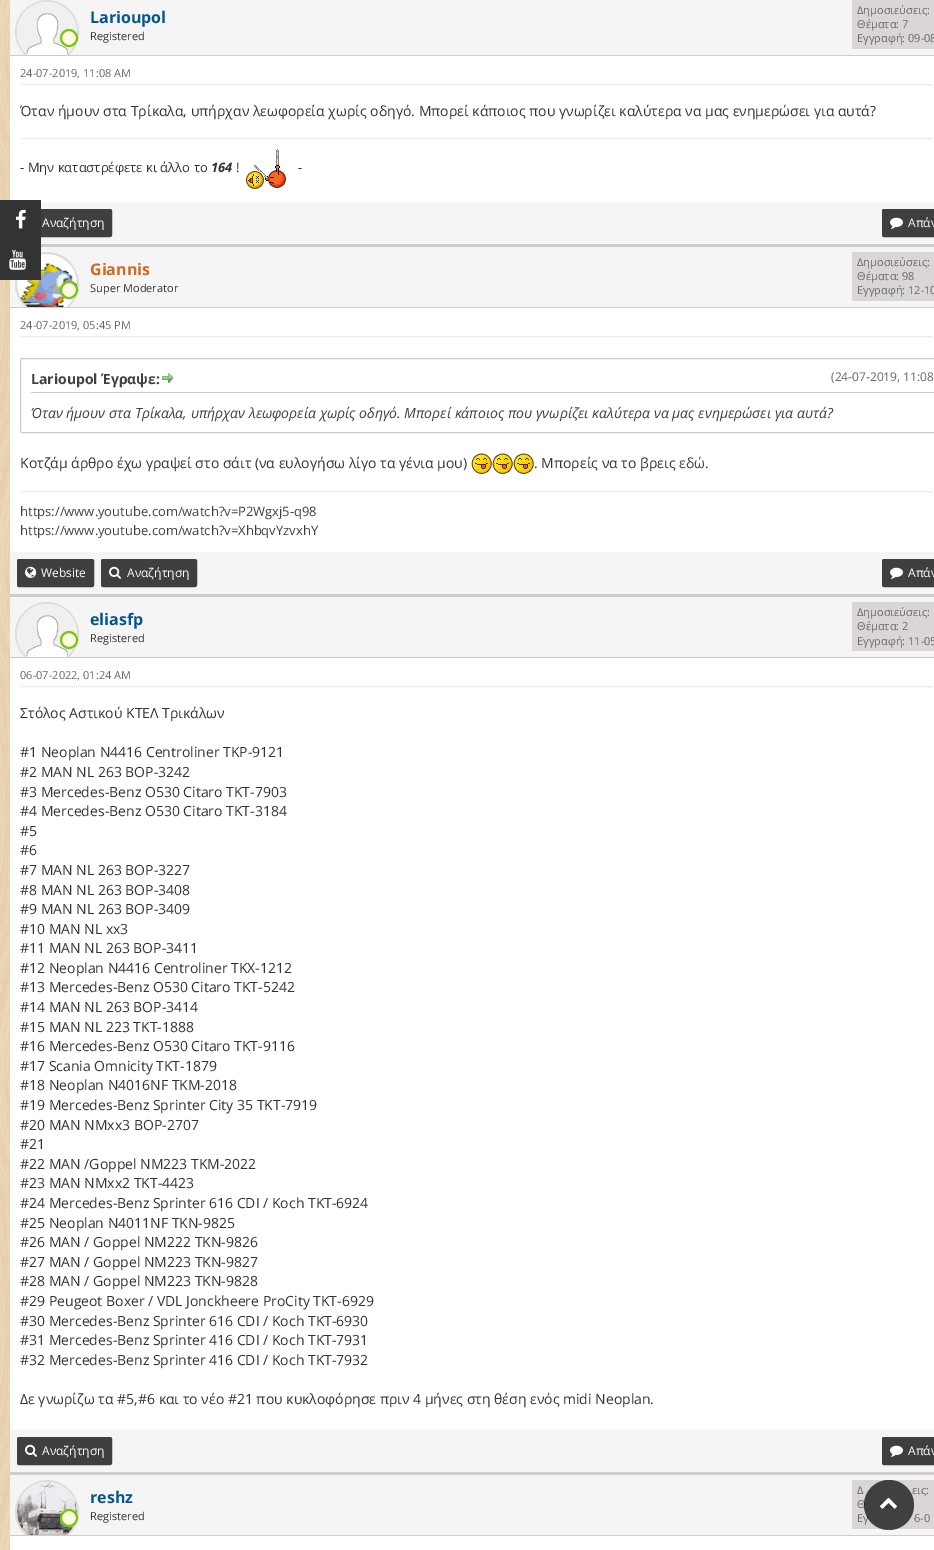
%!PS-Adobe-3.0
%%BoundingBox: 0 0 934 1550
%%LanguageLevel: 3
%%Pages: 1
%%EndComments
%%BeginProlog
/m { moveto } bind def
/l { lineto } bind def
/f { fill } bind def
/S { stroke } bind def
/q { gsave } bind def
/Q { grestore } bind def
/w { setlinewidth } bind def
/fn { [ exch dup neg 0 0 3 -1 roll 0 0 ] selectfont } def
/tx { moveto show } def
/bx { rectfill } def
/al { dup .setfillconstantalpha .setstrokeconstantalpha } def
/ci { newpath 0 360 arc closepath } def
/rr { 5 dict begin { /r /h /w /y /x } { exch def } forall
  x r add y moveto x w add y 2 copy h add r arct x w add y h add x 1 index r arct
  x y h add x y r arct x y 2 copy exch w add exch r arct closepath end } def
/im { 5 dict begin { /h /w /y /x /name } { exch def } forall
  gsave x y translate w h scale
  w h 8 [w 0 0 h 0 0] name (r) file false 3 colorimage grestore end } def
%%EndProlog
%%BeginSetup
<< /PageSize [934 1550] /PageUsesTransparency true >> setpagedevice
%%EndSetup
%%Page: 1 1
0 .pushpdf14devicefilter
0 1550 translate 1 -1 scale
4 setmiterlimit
1 setgray
0 0 934 1550 bx
(image0.raw) 0 0 10 1550 im
0.961 setgray
10 0 924 55 bx
0.8 setgray
10 55 924 1 bx
q
10 0 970 55 rectclip
1 setgray
47 32 31 ci q f Q
0.867 setgray
2 w
S
Q
(image1.raw) 17 2 60 53 im
/OpenSans-Bold 16 fn
0.012 0.337 0.549 setrgbcolor
(Larioupol) 90 23 tx
0.984 0.976 0.882 setrgbcolor
69 38 8 ci q f Q
0.482 0.773 0.071 setrgbcolor
2 w
S
/OpenSans-Regular 11 fn
0.2 setgray
(Registered) 90 40 tx
0.859 0.839 0.839 setrgbcolor
852 0 82 49 bx
0.4 setgray
(Δημοσιεύσεις:) 857 14 tx
(Θέματα: 7) 857 28 tx
(Εγγραφή: 09-08) 857 42 tx
0.867 setgray
1 w
[1 1] 0 setdash
20 84.5 m 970 84.5 l S
0.4 setgray
(24-07-2019, 11:08 AM) 20 77 tx
/OpenSans-Regular 14 fn
0.2 setgray
(Όταν ήμουν στα Τρίκαλα, υπήρχαν λεωφορεία χωρίς οδηγό. Μπορεί κάποιος που γνωρίζει καλύτερα να μας ενημερώσει για αυτά?) 20 116 tx
0.867 setgray
20 138.5 m 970 138.5 l S
/OpenSans-Regular 13 fn
0.2 setgray
(- Μην καταστρέφετε κι άλλο το) 20 172 tx
/OpenSans-BoldItalic 13 fn
(164) 211 172 tx
/OpenSans-Regular 13 fn
(!) 236 172 tx
(image2.raw) 246 149 40 40 im
(-) 298 172 tx
0.961 setgray
41 202 893 42 bx
0.8 setgray
41 244 893 3 bx
0.247 setgray
18 210 93 26 1 rr q f Q
2 w
[] 0 setdash
S
/OpenSans-Regular 12 fn
1 setgray
(Αναζήτηση) 42 227 tx
0.247 setgray
883 210 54 26 1 rr q f Q
S
(image3.raw) 890 217 13 12 im
1 setgray
(Απάν) 908 227 tx
0.961 setgray
10 247 924 60 bx
0.8 setgray
10 307 924 1 bx
q
10 247 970 60 rectclip
1 setgray
47 284 31 ci q f Q
0.867 setgray
S
Q
(image4.raw) 20 263 57 44 im
/OpenSans-Bold 16 fn
0.824 0.412 0.118 setrgbcolor
(Giannis) 90 275 tx
0.984 0.976 0.882 setrgbcolor
69 290 8 ci q f Q
0.482 0.773 0.071 setrgbcolor
S
/OpenSans-Regular 11 fn
0.2 setgray
(Super Moderator) 90 292 tx
0.859 0.839 0.839 setrgbcolor
852 252 82 49 bx
0.4 setgray
(Δημοσιεύσεις:) 857 266 tx
(Θέματα: 98) 857 280 tx
(Εγγραφή: 12-10) 857 294 tx
0.867 setgray
1 w
[1 1] 0 setdash
20 336.5 m 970 336.5 l S
0.4 setgray
(24-07-2019, 05:45 PM) 20 329 tx
0.8 setgray
[] 0 setdash
20.5 358.5 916 74 1.5 rr S
31 392 903 1 bx
/OpenSans-Bold 14 fn
0.251 setgray
(Larioupol Έγραψε:) 31 384 tx
(image5.raw) 162 373 11 10 im
/OpenSans-Regular 12 fn
0.4 setgray
(\(24-07-2019, 11:08) 831 381 tx
/OpenSans-Italic 14 fn
0.251 setgray
(Όταν ήμουν στα Τρίκαλα, υπήρχαν λεωφορεία χωρίς οδηγό. Μπορεί κάποιος που γνωρίζει καλύτερα να μας ενημερώσει για αυτά?) 31 418 tx
/OpenSans-Regular 14 fn
0.2 setgray
(Κοτζάμ άρθρο έχω γραψεί στο σάιτ \(να ευλογήσω λίγο τα γένια μου\)) 20 468 tx
(image6.raw) 471 453 21 21 im
(image6.raw) 492 453 21 21 im
(image6.raw) 513 453 21 21 im
(. Μπορείς να το βρεις) 534 468 tx
0.251 setgray
(εδώ) 679 468 tx
0.2 setgray
(.) 705 468 tx
0.867 setgray
[1 1] 0 setdash
20 491.5 m 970 491.5 l S
/OpenSans-Regular 13 fn
0.251 setgray
(https://www.youtube.com/watch?v=P2Wgxj5-q98) 20 516 tx
(https://www.youtube.com/watch?v=XhbqvYzvxhY) 20 535 tx
0.961 setgray
10 552 924 42 bx
0.8 setgray
10 594 924 3 bx
0.247 setgray
18 560 75 26 1 rr q f Q
2 w
[] 0 setdash
S
(image7.raw) 25 566 12 12 im
/OpenSans-Regular 12 fn
1 setgray
(Website) 41 577 tx
0.247 setgray
102 560 94 26 1 rr q f Q
S
(image8.raw) 109 566 12 13 im
1 setgray
(Αναζήτηση) 127 577 tx
0.247 setgray
883 560 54 26 1 rr q f Q
S
(image3.raw) 890 567 13 12 im
1 setgray
(Απάν) 908 577 tx
0.961 setgray
10 597 924 60 bx
0.8 setgray
10 657 924 1 bx
q
10 597 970 60 rectclip
1 setgray
47 634 31 ci q f Q
0.867 setgray
S
Q
(image9.raw) 17 604 60 53 im
/OpenSans-Bold 16 fn
0.012 0.337 0.549 setrgbcolor
(eliasfp) 90 625 tx
0.984 0.976 0.882 setrgbcolor
69 640 8 ci q f Q
0.482 0.773 0.071 setrgbcolor
S
/OpenSans-Regular 11 fn
0.2 setgray
(Registered) 90 642 tx
0.859 0.839 0.839 setrgbcolor
852 602 82 49 bx
0.4 setgray
(Δημοσιεύσεις:) 857 616 tx
(Θέματα: 2) 857 630 tx
(Εγγραφή: 11-05) 857 645 tx
0.867 setgray
1 w
[1 1] 0 setdash
20 686.5 m 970 686.5 l S
0.4 setgray
(06-07-2022, 01:24 AM) 20 679 tx
/OpenSans-Regular 14 fn
0.2 setgray
(Στόλος Αστικού ΚΤΕΛ Τρικάλων) 20 718 tx
(#1 Neoplan N4416 Centroliner ΤΚΡ-9121) 20 757 tx
(#2 MAN NL 263 ΒΟΡ-3242) 20 777 tx
(#3 Mercedes-Benz O530 Citaro ΤΚΤ-7903) 20 797 tx
(#4 Mercedes-Benz O530 Citaro ΤΚΤ-3184) 20 816 tx
(#5) 20 836 tx
(#6) 20 855 tx
(#7 MAN NL 263 ΒΟΡ-3227) 20 875 tx
(#8 MAN NL 263 ΒΟΡ-3408) 20 895 tx
(#9 MAN NL 263 ΒΟΡ-3409) 20 914 tx
(#10 MAN NL xx3) 20 934 tx
(#11 MAN NL 263 ΒΟΡ-3411) 20 953 tx
(#12 Neoplan N4416 Centroliner ΤΚΧ-1212) 20 973 tx
(#13 Mercedes-Benz O530 Citaro ΤΚΤ-5242) 20 992 tx
(#14 MAN NL 263 ΒΟΡ-3414) 20 1012 tx
(#15 MAN NL 223 ΤΚΤ-1888) 20 1032 tx
(#16 Mercedes-Benz O530 Citaro TKT-9116) 20 1051 tx
(#17 Scania Omnicity TKT-1879) 20 1071 tx
(#18 Neoplan N4016NF TKM-2018) 20 1090 tx
(#19 Mercedes-Benz Sprinter City 35 TKT-7919) 20 1110 tx
(#20 MAN NMxx3 ΒΟΡ-2707) 20 1130 tx
(#21) 20 1149 tx
(#22 MAN /Goppel NM223 ΤΚΜ-2022) 20 1169 tx
(#23 MAN NMxx2 ΤΚΤ-4423) 20 1188 tx
(#24 Mercedes-Benz Sprinter 616 CDI / Koch ΤΚΤ-6924) 20 1208 tx
(#25 Neoplan N4011NF ΤΚΝ-9825) 20 1228 tx
(#26 MAN / Goppel NM222 ΤΚΝ-9826) 20 1247 tx
(#27 MAN / Goppel NM223 ΤΚΝ-9827) 20 1267 tx
(#28 MAN / Goppel NM223 ΤΚΝ-9828) 20 1286 tx
(#29 Peugeot Boxer / VDL Jonckheere ProCity TKT-6929) 20 1306 tx
(#30 Mercedes-Benz Sprinter 616 CDI / Koch TKT-6930) 20 1326 tx
(#31 Mercedes-Benz Sprinter 416 CDI / Koch TKT-7931) 20 1345 tx
(#32 Mercedes-Benz Sprinter 416 CDI / Koch TKT-7932) 20 1365 tx
(Δε γνωρίζω τα #5,#6 και το νέο #21 που κυκλοφόρησε πριν 4 μήνες στη θέση ενός midi Neoplan.) 20 1404 tx
0.961 setgray
10 1430 924 42 bx
0.8 setgray
10 1472 924 3 bx
0.247 setgray
18 1438 93 26 1 rr q f Q
2 w
[] 0 setdash
S
(image8.raw) 25 1444 12 13 im
/OpenSans-Regular 12 fn
1 setgray
(Αναζήτηση) 42 1455 tx
0.247 setgray
883 1438 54 26 1 rr q f Q
S
(image3.raw) 890 1445 13 12 im
1 setgray
(Απάν) 908 1455 tx
0.961 setgray
10 1475 924 60 bx
0.8 setgray
10 1535 924 1 bx
q
10 1475 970 60 rectclip
1 setgray
47 1512 31 ci q f Q
0.867 setgray
S
Q
(image10.raw) 17 1482 60 53 im
/OpenSans-Bold 16 fn
0.012 0.337 0.549 setrgbcolor
(reshz) 90 1503 tx
0.984 0.976 0.882 setrgbcolor
69 1518 8 ci q f Q
0.482 0.773 0.071 setrgbcolor
S
/OpenSans-Regular 11 fn
0.2 setgray
(Registered) 90 1520 tx
0.859 0.839 0.839 setrgbcolor
852 1480 82 49 bx
0.4 setgray
(Δ) 857 1494 tx
(εις:) 912 1494 tx
(Θ) 857 1508 tx
(Εγ) 857 1522 tx
(6-0) 914 1522 tx
0.2 setgray
0 200 41 80 bx
(image11.raw) 16 209 10 20 im
(image12.raw) 9 249 17 21 im
0.7 al
0 setgray
889 1505 25 ci f
1 al
(image13.raw) 880 1497 17 12 im
.poppdf14devicefilter showpage
%%EOF
